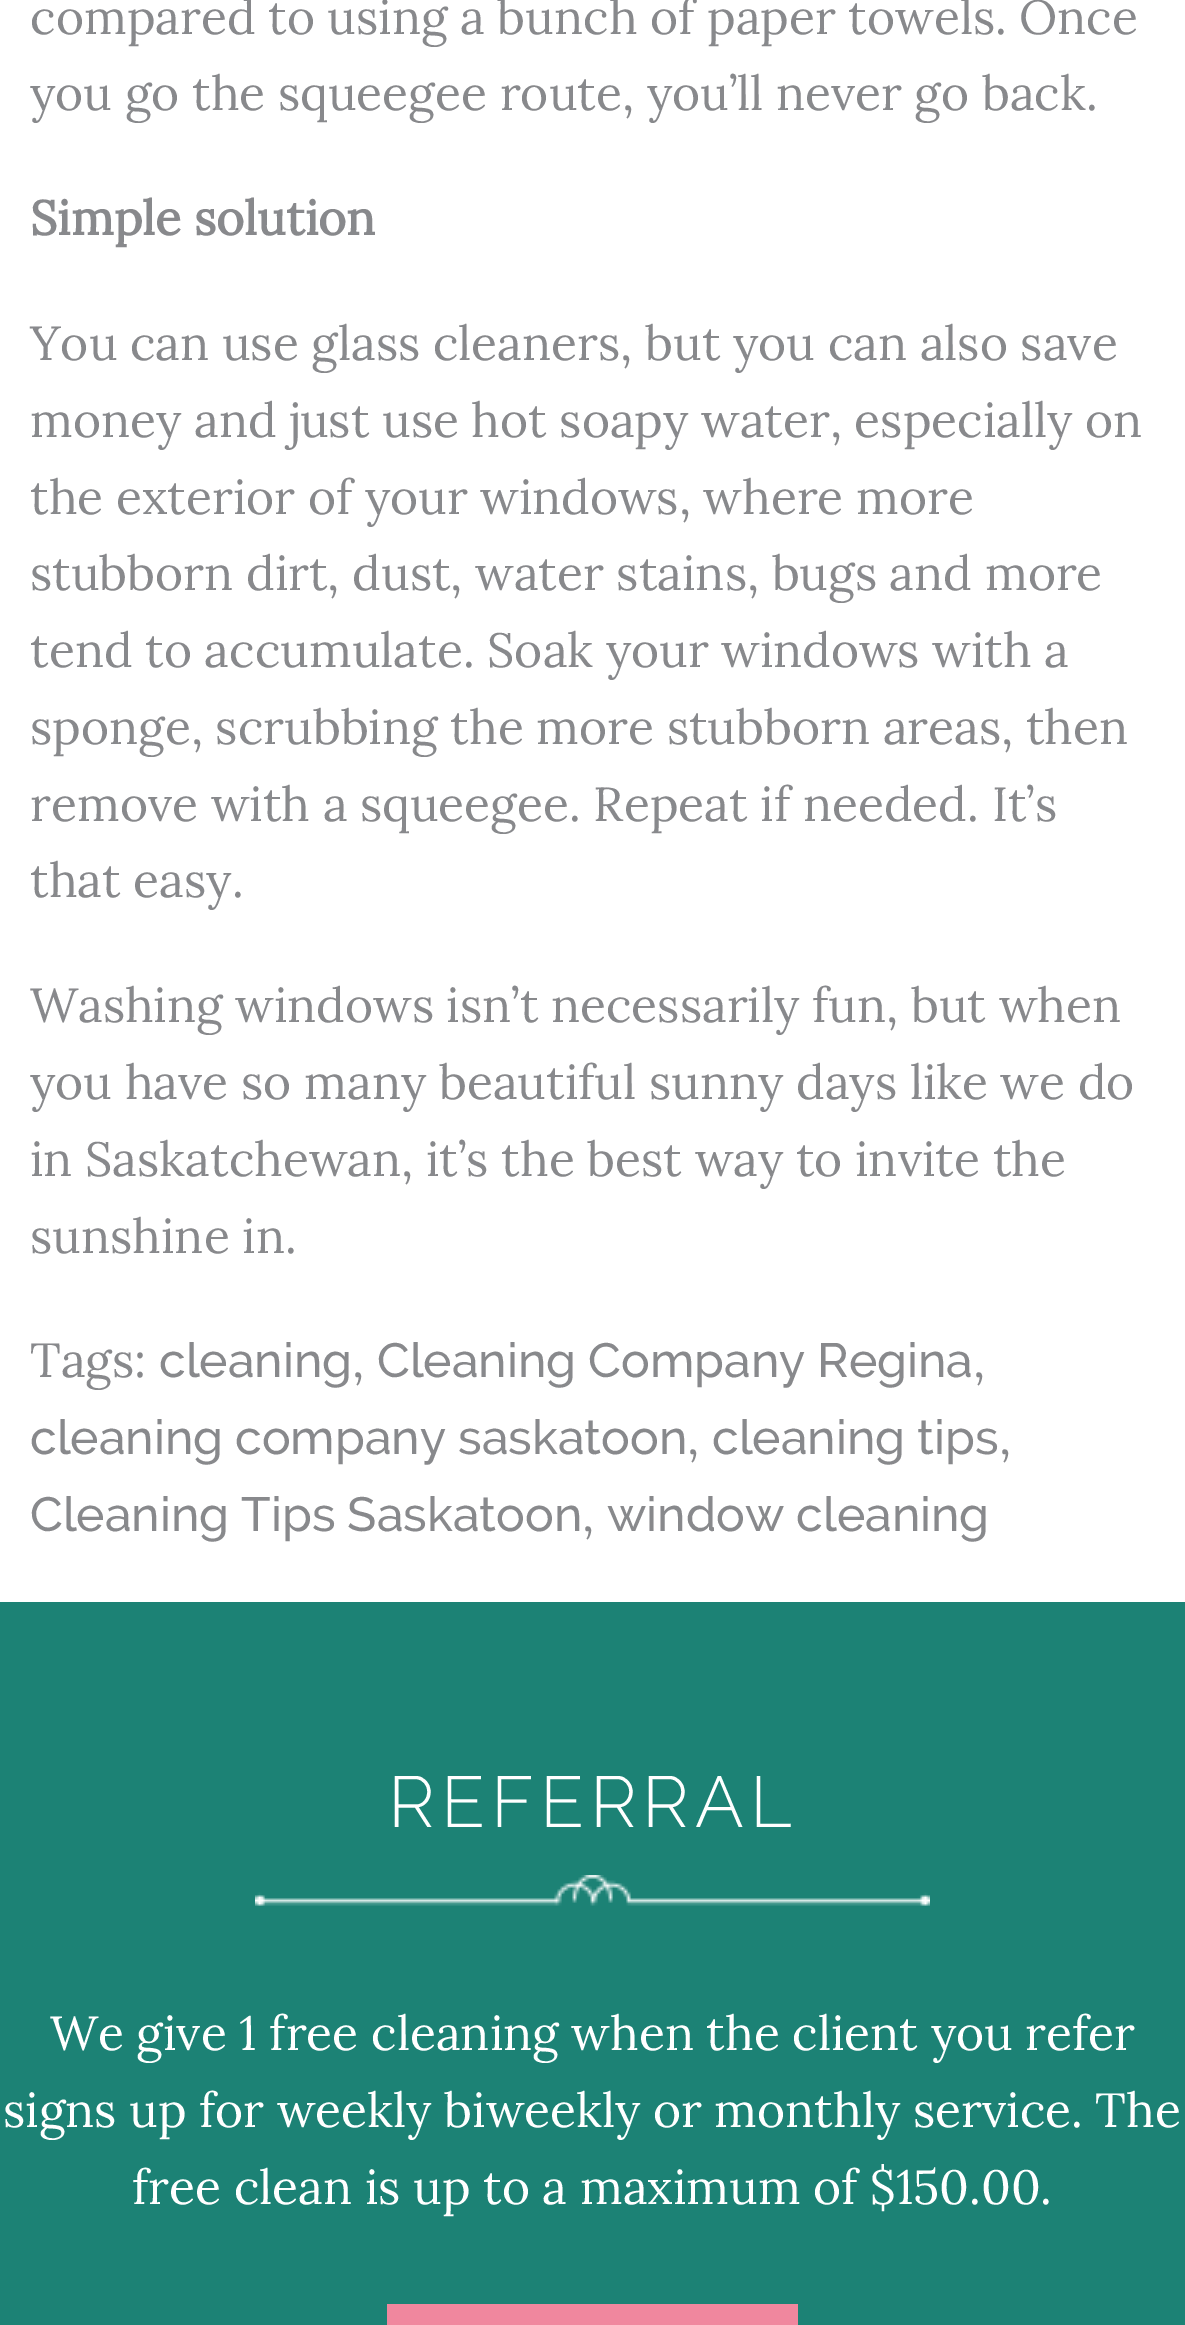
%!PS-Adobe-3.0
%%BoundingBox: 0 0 1185 2325
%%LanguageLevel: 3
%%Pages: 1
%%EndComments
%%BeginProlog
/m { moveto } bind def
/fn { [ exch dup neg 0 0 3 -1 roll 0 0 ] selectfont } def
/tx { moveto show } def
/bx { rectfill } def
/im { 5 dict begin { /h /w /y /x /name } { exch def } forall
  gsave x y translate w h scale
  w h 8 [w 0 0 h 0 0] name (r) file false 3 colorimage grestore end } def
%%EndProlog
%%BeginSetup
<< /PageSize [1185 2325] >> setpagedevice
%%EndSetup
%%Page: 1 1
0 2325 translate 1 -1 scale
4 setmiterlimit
1 setgray
0 0 1185 2325 bx
/Lora-Regular 48 fn
0.533 0.537 0.549 setrgbcolor
(compared to using a bunch of paper towels. Once) 30 34 tx
(you go the squeegee route, you’ll never go back.) 30 110 tx
/Lora-Bold 48 fn
(Simple solution) 30 235 tx
/Lora-Regular 48 fn
(You can use glass cleaners, but you can also save) 30 360 tx
(money and just use hot soapy water, especially on) 30 437 tx
(the exterior of your windows, where more) 30 514 tx
(stubborn dirt, dust, water stains, bugs and more) 30 590 tx
(tend to accumulate. Soak your windows with a) 30 667 tx
(sponge, scrubbing the more stubborn areas, then) 30 744 tx
(remove with a squeegee. Repeat if needed. It’s) 30 821 tx
(that easy.) 30 897 tx
(Washing windows isn’t necessarily fun, but when) 30 1022 tx
(you have so many beautiful sunny days like we do) 30 1099 tx
(in Saskatchewan, it’s the best way to invite the) 30 1176 tx
(sunshine in.) 30 1253 tx
(Tags:) 30 1377 tx
/Raleway-Medium 48 fn
(cleaning) 159 1377 tx
/Lora-Regular 48 fn
(,) 352 1377 tx
/Raleway-Medium 48 fn
(Cleaning Company Regina) 377 1377 tx
/Lora-Regular 48 fn
(,) 973 1377 tx
/Raleway-Medium 48 fn
(cleaning company saskatoon) 30 1454 tx
/Lora-Regular 48 fn
(,) 687 1454 tx
/Raleway-Medium 48 fn
(cleaning tips) 712 1454 tx
/Lora-Regular 48 fn
(,) 999 1454 tx
/Raleway-Medium 48 fn
(Cleaning Tips Saskatoon) 30 1531 tx
/Lora-Regular 48 fn
(,) 582 1531 tx
/Raleway-Medium 48 fn
(window cleaning) 607 1531 tx
0.11 0.51 0.459 setrgbcolor
0 1602 1185 723 bx
/Raleway-Light 72 fn
1 setgray
388 1827 m 6 0 (REFERRAL) ashow
(image0.raw) 255 1875 675 31 im
/Lora-Regular 48 fn
(We give 1 free cleaning when the client you refer) 50 2050 tx
(signs up for weekly biweekly or monthly service. The) 3 2127 tx
(free clean is up to a maximum of $150.00.) 132 2204 tx
0.941 0.529 0.62 setrgbcolor
387 2304 411 21 bx
showpage
%%EOF
